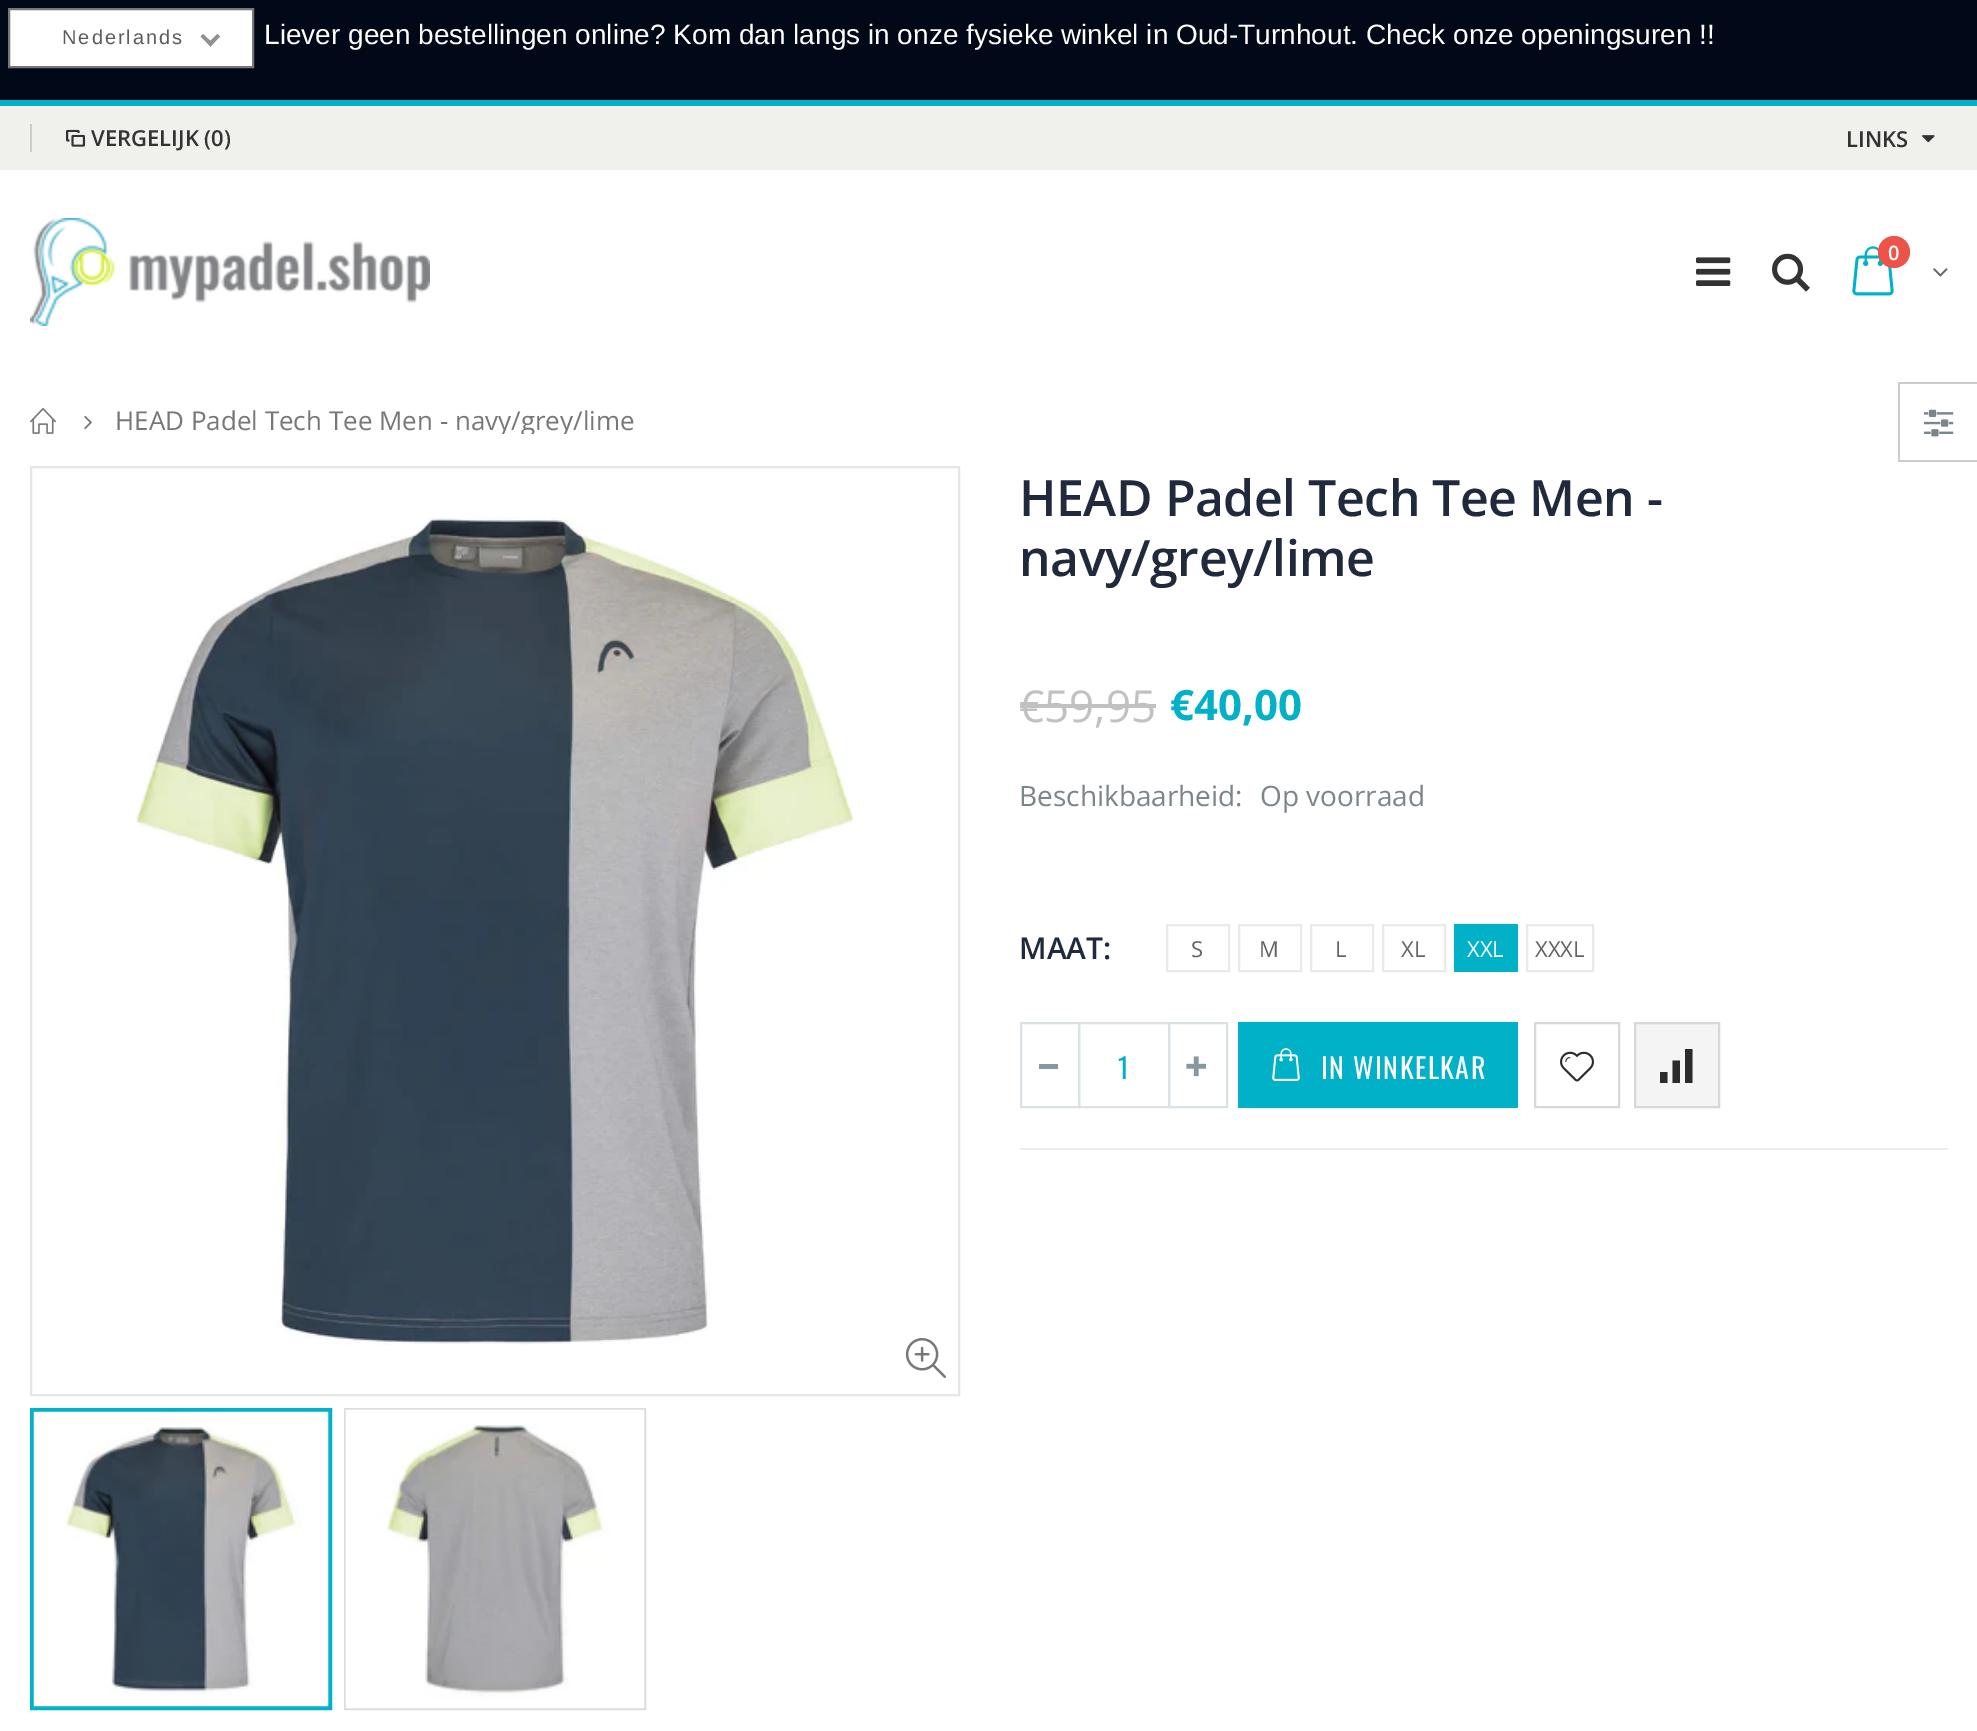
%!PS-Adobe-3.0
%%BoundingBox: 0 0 1977 1731
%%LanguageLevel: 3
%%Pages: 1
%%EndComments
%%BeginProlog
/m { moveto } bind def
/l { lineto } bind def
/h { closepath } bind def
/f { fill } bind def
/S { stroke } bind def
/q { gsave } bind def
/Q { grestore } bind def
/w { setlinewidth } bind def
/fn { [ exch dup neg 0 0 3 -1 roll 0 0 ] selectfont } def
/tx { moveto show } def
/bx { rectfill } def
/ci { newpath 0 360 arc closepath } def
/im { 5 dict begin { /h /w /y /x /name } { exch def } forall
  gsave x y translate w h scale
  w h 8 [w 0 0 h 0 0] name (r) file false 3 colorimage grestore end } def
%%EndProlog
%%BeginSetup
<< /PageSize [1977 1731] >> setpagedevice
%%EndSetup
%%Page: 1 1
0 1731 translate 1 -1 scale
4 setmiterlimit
1 setgray
0 0 1977 1731 bx
0.004 0.035 0.098 setrgbcolor
0 0 1977 100 bx
/LiberationSans-Regular 28 fn
1 setgray
(Liever geen bestellingen online? Kom dan langs in onze fysieke winkel in Oud-Turnhout. Check onze openingsuren !!) 264 44 tx
0.004 0.694 0.784 setrgbcolor
0 100 1977 6 bx
0.941 0.941 0.929 setrgbcolor
0 106 1977 64 bx
0.8 setgray
30 124 2 28 bx
(image0.raw) 66 129 20 18 im
/OpenSans-SemiBold 22 fn
0.2 setgray
(VERGELIJK \(0\)) 91 146 tx
(LINKS) 1846 147 tx
(image1.raw) 1922 135 13 8 im
(image2.raw) 30 218 400 108 im
(image3.raw) 1696 257 35 29 im
(image4.raw) 1772 253 38 39 im
(image5.raw) 1852 246 42 50 im
0.929 0.325 0.282 setrgbcolor
1894 252 16 ci f
/OpenSans-SemiBold 20 fn
1 setgray
(0) 1888 260 tx
(image6.raw) 1933 268 15 9 im
(image7.raw) 30 408 26 26 im
(image8.raw) 84 415 8 15 im
q
30 406 1918 28 rectclip
/OpenSans-Regular 26 fn
0.467 setgray
(HEAD Padel Tech Tee Men - navy/grey/lime) 115 430 tx
Q
0.8 setgray
1898 382 79 2 bx
1898 460 79 2 bx
1898 382 2 80 bx
(image9.raw) 1924 409 30 28 im
0.902 setgray
2 w
31 467 928 928 rectstroke
(image10.raw) 135 517 725 828 im
(image11.raw) 905 1338 41 40 im
0.004 0.694 0.784 setrgbcolor
4 w
32 1410 298 298 rectstroke
(image12.raw) 33 1411 297 297 im
0.867 setgray
2 w
345 1409 300 300 rectstroke
(image13.raw) 345 1409 300 300 im
/OpenSans-SemiBold 50 fn
0.129 0.161 0.235 setrgbcolor
1019 516 m -0.5 0 (HEAD Padel Tech Tee Men -) ashow
1019 576 m -0.5 0 (navy/grey/lime) ashow
/OpenSans-Regular 44 fn
0.757 setgray
(€59,95) 1019 722 tx
1020 704 136 4 bx
/OpenSans-Bold 42 fn
0.004 0.694 0.784 setrgbcolor
(€40,00) 1170 720 tx
/OpenSans-Regular 28 fn
0.482 0.522 0.541 setrgbcolor
(Beschikbaarheid:) 1019 806 tx
(Op voorraad) 1260 806 tx
/OpenSans-SemiBold 30 fn
0.129 0.161 0.235 setrgbcolor
(MAAT:) 1019 959 tx
0.914 setgray
1167 925 62 46 rectstroke
/OpenSans-Regular 22 fn
0.388 setgray
(S) 1191 957 tx
0.914 setgray
1239 925 62 46 rectstroke
0.388 setgray
(M) 1259 957 tx
0.914 setgray
1311 925 62 46 rectstroke
0.388 setgray
(L) 1335 957 tx
0.914 setgray
1383 925 62 46 rectstroke
0.388 setgray
(XL) 1401 957 tx
0.004 0.694 0.784 setrgbcolor
1454 924 64 48 bx
1 setgray
(XXL) 1467 957 tx
0.914 setgray
1527 925 66 46 rectstroke
0.388 setgray
(XXXL) 1535 957 tx
0.922 setgray
1020 1148 928 2 bx
0.882 setgray
1079 1023 90 84 rectstroke
0.855 0.886 0.902 setrgbcolor
1021 1023 58 84 rectstroke
0.529 0.596 0.635 setrgbcolor
1039 1064 19 5 bx
0.855 0.886 0.902 setrgbcolor
1169 1023 58 84 rectstroke
(image14.raw) 1186 1056 21 21 im
/Oswald-Regular 28 fn
0.004 0.694 0.784 setrgbcolor
(1) 1118 1079 tx
1238 1022 280 86 bx
(image15.raw) 1272 1048 28 33 im
1 setgray
1321 1079 m 1.4 0 (IN WINKELKAR) ashow
0.847 0.847 0.839 setrgbcolor
1535 1023 84 84 rectstroke
(image16.raw) 1560 1051 34 31 im
0.957 setgray
1635 1023 m 1719 1023 l 1719 1107 l 1635 1107 l h q f Q
0.847 0.847 0.839 setrgbcolor
S
0.169 0.169 0.176 setrgbcolor
1667.5 1083 m 1660 1083 l 1660 1072 l 1667.5 1072 l h 1680 1083 m 1672.5 1083 l 1672.5 1060.5 l 1680 1060.5 l h 1685 1083 m 1685 1049 l 1692.5 1049 l 1692.5 1083 l h f
1 setgray
9 9 m 253 9 l 253 67 l 9 67 l h q f Q
0.467 setgray
S
/LiberationSans-Regular 20 fn
0.361 setgray
62 44 m 2 0 (Nederlands) ashow
0.565 setgray
217.5 34 m 220 36.5 l 210.5 46.5 l 207.5 43.5 l h f
203 34 m 213 43.5 l 210.5 46.5 l 200.5 36.5 l h f
showpage
%%EOF
